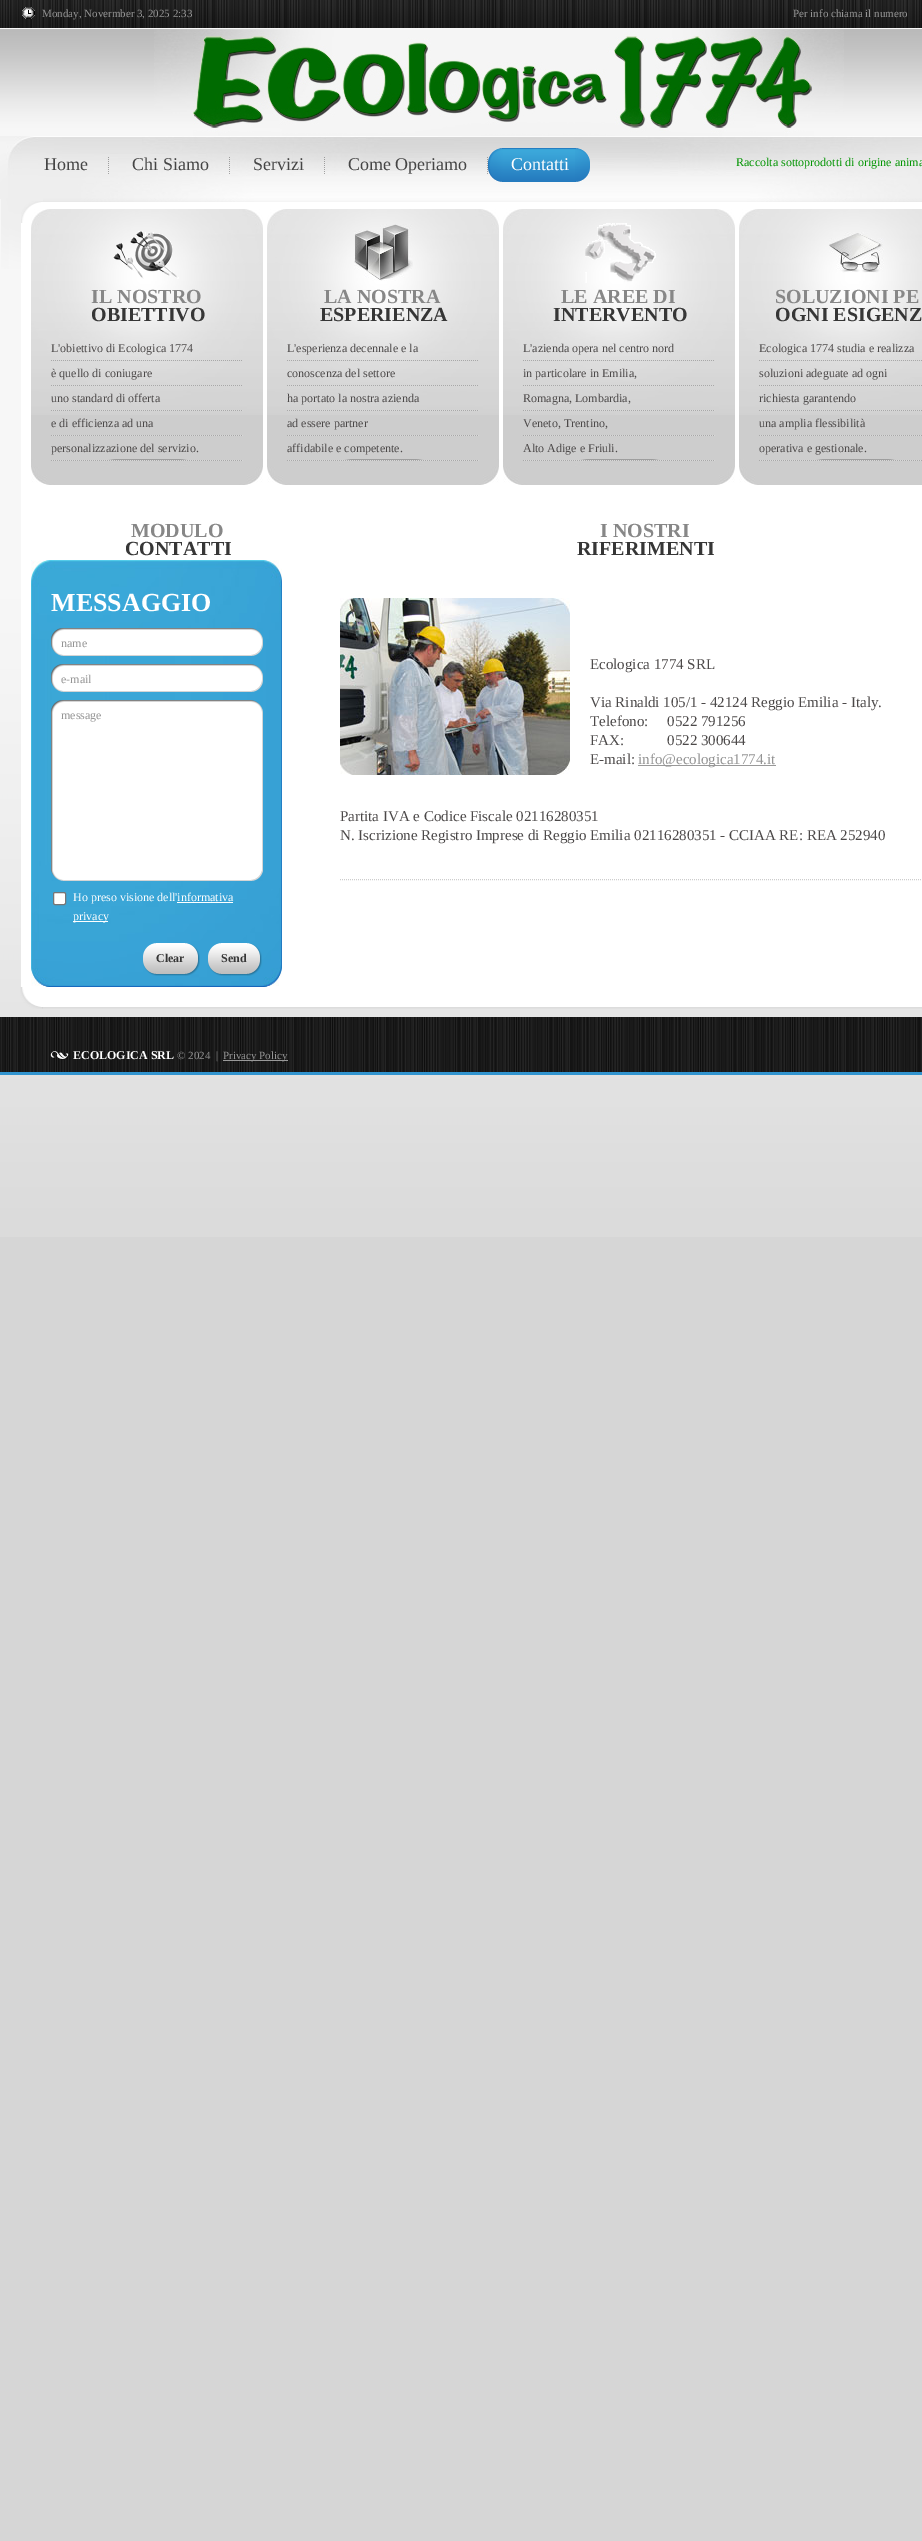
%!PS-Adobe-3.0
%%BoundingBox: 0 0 922 2541
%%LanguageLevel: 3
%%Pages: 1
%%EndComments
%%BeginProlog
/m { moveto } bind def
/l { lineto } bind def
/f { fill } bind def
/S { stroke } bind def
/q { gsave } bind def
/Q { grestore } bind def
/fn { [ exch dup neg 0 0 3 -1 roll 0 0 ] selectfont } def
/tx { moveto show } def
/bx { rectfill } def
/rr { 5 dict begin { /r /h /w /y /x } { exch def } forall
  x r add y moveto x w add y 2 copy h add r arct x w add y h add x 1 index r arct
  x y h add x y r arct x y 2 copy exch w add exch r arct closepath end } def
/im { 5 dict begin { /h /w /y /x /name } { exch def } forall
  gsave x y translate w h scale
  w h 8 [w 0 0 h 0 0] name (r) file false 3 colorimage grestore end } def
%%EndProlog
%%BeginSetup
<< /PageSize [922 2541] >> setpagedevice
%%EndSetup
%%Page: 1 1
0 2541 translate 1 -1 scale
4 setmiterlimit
0.839 setgray
0 0 922 2541 bx
(image0.raw) 0 28 922 1209 im
(image1.raw) 154 29 690 85 im
(image2.raw) 0 0 922 28 im
(image3.raw) 22 7 13 12 im
/LiberationSerif-Regular 11 fn
0.58 setgray
(Monday, Novermber 3, 2025 2:33) 42 17 tx
(Per info chiama il numero) 793 17 tx
(image4.raw) 193 30 621 106 im
(image5.raw) 0 136 922 63 im
(image6.raw) 108 157 1 17 im
/LiberationSerif-Regular 18 fn
0.271 setgray
(Home) 44 170 tx
(image6.raw) 229 157 1 17 im
(Chi Siamo) 132 170 tx
(image6.raw) 324 157 1 17 im
(Servizi) 253 170 tx
(image6.raw) 487 157 1 17 im
(Come Operiamo) 348 170 tx
(image7.raw) 488 148 15 34 im
(image8.raw) 575 148 15 34 im
(image9.raw) 503 148 72 34 im
1 setgray
(Contatti) 511 170 tx
/LiberationSerif-Regular 12 fn
0.016 0.588 0.016 setrgbcolor
(Raccolta sottoprodotti di origine anima) 736 166 tx
(image10.raw) 1 198 42 71 im
(image11.raw) 21 201 22 22 im
(image12.raw) 43 198 879 25 im
1 setgray
21 223 901 764 bx
0.804 setgray
31 415 232 44 bx
(image13.raw) 31 209 232 206 im
(image14.raw) 31 459 232 26 im
(image15.raw) 113 231 66 48 im
/LiberationSerif-Bold 20 fn
0.529 setgray
(IL NOSTRO) 91 303 tx
0.212 setgray
(OBIETTIVO) 91 321 tx
(image16.raw) 51 360 191 1 im
/LiberationSerif-Regular 12 fn
0.298 0.286 0.286 setrgbcolor
(L'obiettivo di Ecologica 1774) 51 352 tx
(image16.raw) 51 385 191 1 im
(è quello di coniugare) 51 377 tx
(image17.raw) 51 410 192 1 im
(uno standard di offerta) 51 402 tx
(image17.raw) 51 435 192 1 im
(e di efficienza ad una) 51 427 tx
(image17.raw) 51 460 192 1 im
(personalizzazione del servizio.) 51 452 tx
0.804 setgray
267 415 232 44 bx
(image13.raw) 267 209 232 206 im
(image14.raw) 267 459 232 26 im
(image18.raw) 354 224 59 57 im
/LiberationSerif-Bold 20 fn
0.529 setgray
(LA NOSTRA) 324 303 tx
0.212 setgray
(ESPERIENZA) 320 321 tx
(image16.raw) 287 360 191 1 im
/LiberationSerif-Regular 12 fn
0.298 0.286 0.286 setrgbcolor
(L'esperienza decennale e la) 287 352 tx
(image16.raw) 287 385 191 1 im
(conoscenza del settore) 287 377 tx
(image17.raw) 287 410 192 1 im
(ha portato la nostra azienda) 287 402 tx
(image17.raw) 287 435 192 1 im
(ad essere partner) 287 427 tx
(image17.raw) 287 460 192 1 im
(affidabile e competente.) 287 452 tx
0.804 setgray
503 415 232 44 bx
(image13.raw) 503 209 232 206 im
(image14.raw) 503 459 232 26 im
(image19.raw) 585 223 71 60 im
/LiberationSerif-Bold 20 fn
0.529 setgray
(LE AREE DI) 561 303 tx
0.212 setgray
(INTERVENTO) 553 321 tx
(image16.raw) 523 360 191 1 im
/LiberationSerif-Regular 12 fn
0.298 0.286 0.286 setrgbcolor
(L'azienda opera nel centro nord) 523 352 tx
(image16.raw) 523 385 191 1 im
(in particolare in Emilia,) 523 377 tx
(image17.raw) 523 410 192 1 im
(Romagna, Lombardia,) 523 402 tx
(image17.raw) 523 435 192 1 im
(Veneto, Trentino,) 523 427 tx
(image17.raw) 523 460 192 1 im
(Alto Adige e Friuli.) 523 452 tx
0.804 setgray
739 415 183 70 bx
(image20.raw) 739 209 183 206 im
(image21.raw) 739 459 156 26 im
(image22.raw) 829 232 55 41 im
/LiberationSerif-Bold 20 fn
0.529 setgray
(SOLUZIONI PE) 775 303 tx
0.212 setgray
(OGNI ESIGENZ) 775 321 tx
(image23.raw) 759 360 163 1 im
/LiberationSerif-Regular 12 fn
0.298 0.286 0.286 setrgbcolor
(Ecologica 1774 studia e realizza) 759 352 tx
(image23.raw) 759 385 163 1 im
(soluzioni adeguate ad ogni) 759 377 tx
(image23.raw) 759 410 163 1 im
(richiesta garantendo) 759 402 tx
(image23.raw) 759 435 163 1 im
(una amplia flessibilità) 759 427 tx
(image23.raw) 759 460 163 1 im
(operativa e gestionale.) 759 452 tx
/LiberationSerif-Bold 20 fn
0.529 setgray
(MODULO) 131 537 tx
0.212 setgray
(CONTATTI) 125 555 tx
(image24.raw) 31 560 251 427 im
/LiberationSerif-Bold 26 fn
1 setgray
(MESSAGGIO) 51 611 tx
(image25.raw) 51 628 212 28 im
/LiberationSerif-Regular 12 fn
0.58 setgray
(name) 61 647 tx
(image25.raw) 51 664 212 28 im
(e-mail) 61 683 tx
(image26.raw) 51 700 212 181 im
(message) 61 719 tx
1 setgray
53.5 892.5 12 12 1.5 rr q f Q
0.463 setgray
S
1 setgray
(Ho preso visione dell'informativa) 73 901 tx
73 921 35 1 bx
(privacy) 73 920 tx
177 902 56 1 bx
(image27.raw) 143 943 13 33 im
(image28.raw) 185 943 15 33 im
(image29.raw) 156 943 29 33 im
/LiberationSerif-Bold 12 fn
0.212 setgray
(Clear) 156 962 tx
(image30.raw) 208 943 13 33 im
(image31.raw) 247 943 15 33 im
(image32.raw) 221 943 26 33 im
(Send) 221 962 tx
/LiberationSerif-Bold 20 fn
0.529 setgray
(I NOSTRI) 600 537 tx
0.212 setgray
(RIFERIMENTI) 577 555 tx
0.804 setgray
[1 1] 0 setdash
340 879.5 m 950 879.5 l S
(image33.raw) 340 598 230 177 im
/LiberationSerif-Regular 15 fn
0.298 0.286 0.286 setrgbcolor
(Ecologica 1774 SRL) 590 669 tx
(Via Rinaldi 105/1 - 42124 Reggio Emilia - Italy.) 590 707 tx
(Telefono:) 590 726 tx
(0522 791256) 667 726 tx
(FAX:) 590 745 tx
(0522 300644) 667 745 tx
(E-mail:) 590 764 tx
0.6 setgray
638 765 138 1 bx
0.58 setgray
(info@ecologica1774.it) 638 764 tx
0.298 0.286 0.286 setrgbcolor
(Partita IVA e Codice Fiscale 02116280351) 340 821 tx
(N. Iscrizione Registro Imprese di Reggio Emilia 02116280351 - CCIAA RE: REA 252940) 340 840 tx
(image34.raw) 20 987 23 22 im
(image35.raw) 42 987 880 22 im
(image36.raw) 0 1017 922 55 im
0.192 0.58 0.812 setrgbcolor
0 1072 922 3 bx
(image37.raw) 50 1051 19 9 im
/LiberationSerif-Bold 12 fn
1 setgray
(ECOLOGICA SRL) 73 1059 tx
/LiberationSerif-Regular 11 fn
0.58 setgray
(© 2024  |) 177 1059 tx
0.6 setgray
223 1060 65 1 bx
0.58 setgray
(Privacy Policy) 223 1059 tx
showpage
%%EOF
